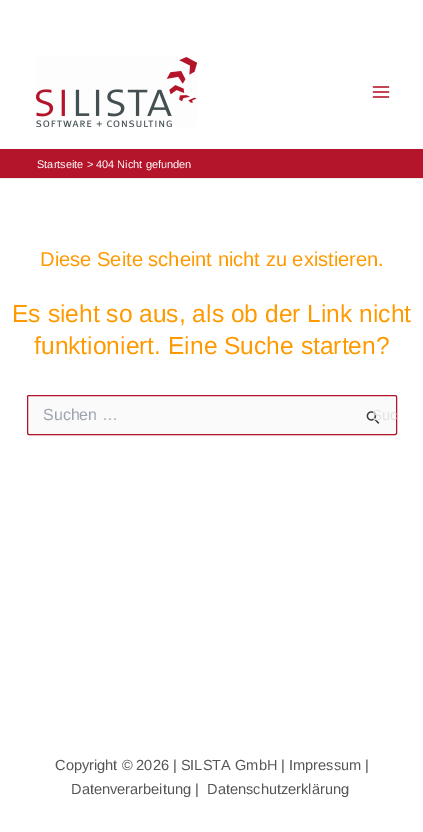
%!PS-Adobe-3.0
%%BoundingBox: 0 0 423 832
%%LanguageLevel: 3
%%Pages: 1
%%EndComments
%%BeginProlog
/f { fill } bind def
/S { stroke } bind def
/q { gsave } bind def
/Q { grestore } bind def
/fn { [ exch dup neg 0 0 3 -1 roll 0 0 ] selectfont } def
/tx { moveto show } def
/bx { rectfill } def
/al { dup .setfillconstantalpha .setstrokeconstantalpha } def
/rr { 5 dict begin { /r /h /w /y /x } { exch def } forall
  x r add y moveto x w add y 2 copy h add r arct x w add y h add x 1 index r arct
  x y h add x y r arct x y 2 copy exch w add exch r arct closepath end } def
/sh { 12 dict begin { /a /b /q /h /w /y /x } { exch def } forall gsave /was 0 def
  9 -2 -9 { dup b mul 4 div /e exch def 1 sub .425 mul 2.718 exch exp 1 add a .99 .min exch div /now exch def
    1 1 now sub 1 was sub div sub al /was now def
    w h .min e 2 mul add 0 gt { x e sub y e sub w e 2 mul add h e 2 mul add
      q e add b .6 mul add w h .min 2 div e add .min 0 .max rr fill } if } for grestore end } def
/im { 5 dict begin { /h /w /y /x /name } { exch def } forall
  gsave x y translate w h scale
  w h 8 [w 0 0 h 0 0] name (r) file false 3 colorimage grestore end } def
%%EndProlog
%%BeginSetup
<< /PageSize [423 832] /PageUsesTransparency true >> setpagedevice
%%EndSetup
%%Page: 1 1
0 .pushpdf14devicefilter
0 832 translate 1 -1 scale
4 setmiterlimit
1 setgray
0 0 423 832 bx
(image0.raw) 36 57 161 70 im
(image1.raw) 372 86 18 12 im
0.706 0.082 0.169 setrgbcolor
0 149 423 29 bx
0.918 setgray
0 178 423 1 bx
/LiberationSans-Regular 11 fn
1 setgray
(Startseite > 404 Nicht gefunden) 37 168 tx
/LiberationSans-Regular 20.1 fn
1 0.6 0 setrgbcolor
(Diese Seite scheint nicht zu existieren.) 40 266 tx
/LiberationSans-Regular 24.6 fn
(Es sieht so aus, als ob der Link nicht) 12 322 tx
(funktioniert. Eine Suche starten?) 34 354 tx
0 setgray
27 396 370 40 2 1 0.05 sh
0.98 setgray
27.5 395.5 369 39 1.5 rr q f Q
0.706 0.082 0.169 setrgbcolor
S
/LiberationSans-Regular 16 fn
0.612 0.639 0.686 setrgbcolor
(Suchen …) 43 420 tx
(image2.raw) 366 411 14 13 im
/LiberationSans-Regular 14.6 fn
0.894 0.882 0.882 setrgbcolor
(Suc) 372 420 tx
0.333 setgray
(Copyright © 2026 | SILSTA GmbH | Impressum |) 55 770 tx
(Datenverarbeitung |) 71 794 tx
(Datenschutzerklärung) 207 794 tx
.poppdf14devicefilter showpage
%%EOF
